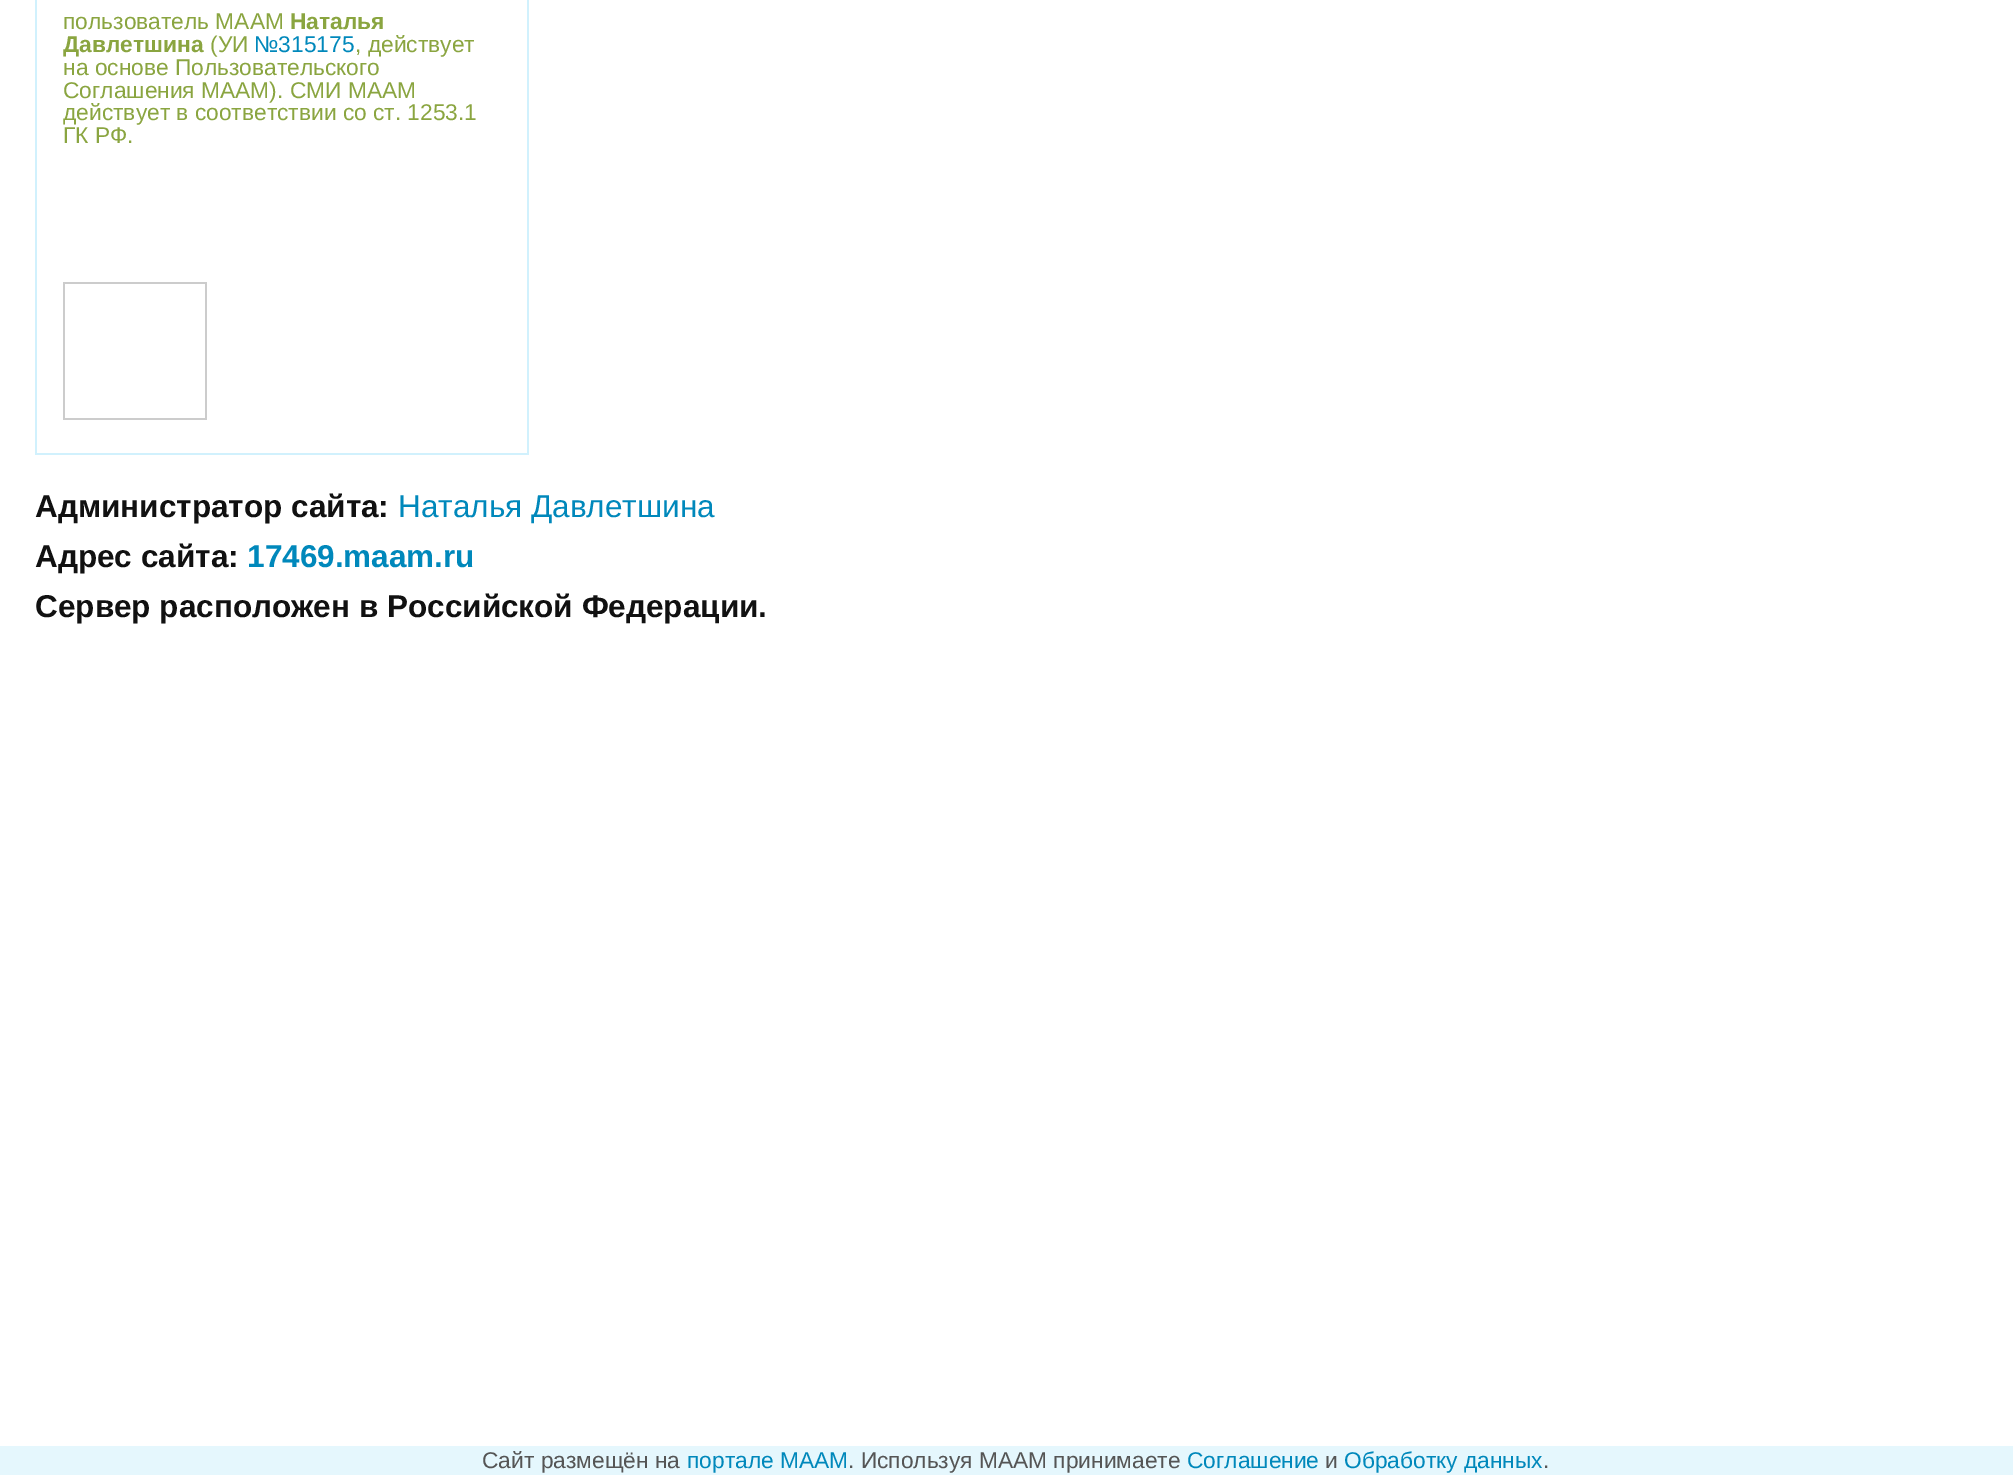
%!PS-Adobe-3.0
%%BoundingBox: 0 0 2013 1475
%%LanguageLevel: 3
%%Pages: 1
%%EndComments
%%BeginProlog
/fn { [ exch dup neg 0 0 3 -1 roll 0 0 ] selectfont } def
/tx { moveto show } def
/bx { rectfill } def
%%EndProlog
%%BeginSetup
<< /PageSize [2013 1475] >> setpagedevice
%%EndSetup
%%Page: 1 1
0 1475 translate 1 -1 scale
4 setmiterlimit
1 setgray
0 0 2013 1475 bx
0.82 0.945 0.992 setrgbcolor
527 0 2 455 bx
35 453 494 2 bx
35 0 2 455 bx
/LiberationSans-Regular 22.75 fn
0.541 0.647 0.251 setrgbcolor
(пользователь МААМ) 63 29 tx
/LiberationSans-Bold 22.75 fn
(Наталья) 290 29 tx
(Давлетшина) 63 52 tx
/LiberationSans-Regular 22.75 fn
(\(УИ) 210 52 tx
0 0.533 0.733 setrgbcolor
(№315175) 254 52 tx
0.541 0.647 0.251 setrgbcolor
(, действует) 355 52 tx
(на основе Пользовательского) 63 75 tx
(Соглашения МААМ\). СМИ МААМ) 63 98 tx
(действует в соответствии со ст. 1253.1) 63 120 tx
(ГК РФ.) 63 143 tx
0.8 setgray
63 282 144 2 bx
205 282 2 138 bx
63 418 144 2 bx
63 282 2 138 bx
/LiberationSans-Bold 31.5 fn
0.067 setgray
(Администратор сайта:) 35 517 tx
/LiberationSans-Regular 31.5 fn
0 0.533 0.733 setrgbcolor
(Наталья Давлетшина) 398 517 tx
/LiberationSans-Bold 31.5 fn
0.067 setgray
(Адрес сайта:) 35 567 tx
0 0.533 0.733 setrgbcolor
(17469.maam.ru) 247 567 tx
0.067 setgray
(Сервер расположен в Российской Федерации.) 35 617 tx
0.898 0.969 0.992 setrgbcolor
0 1446 2013 29 bx
/LiberationSans-Regular 22.75 fn
0.333 setgray
(Сайт размещён на) 482 1468 tx
0 0.533 0.733 setrgbcolor
(портале МААМ) 687 1468 tx
0.333 setgray
(. Используя МААМ принимаете) 848 1468 tx
0 0.533 0.733 setrgbcolor
(Соглашение) 1187 1468 tx
0.333 setgray
(и) 1325 1468 tx
0 0.533 0.733 setrgbcolor
(Обработку данных) 1344 1468 tx
0.333 setgray
(.) 1543 1468 tx
showpage
%%EOF
